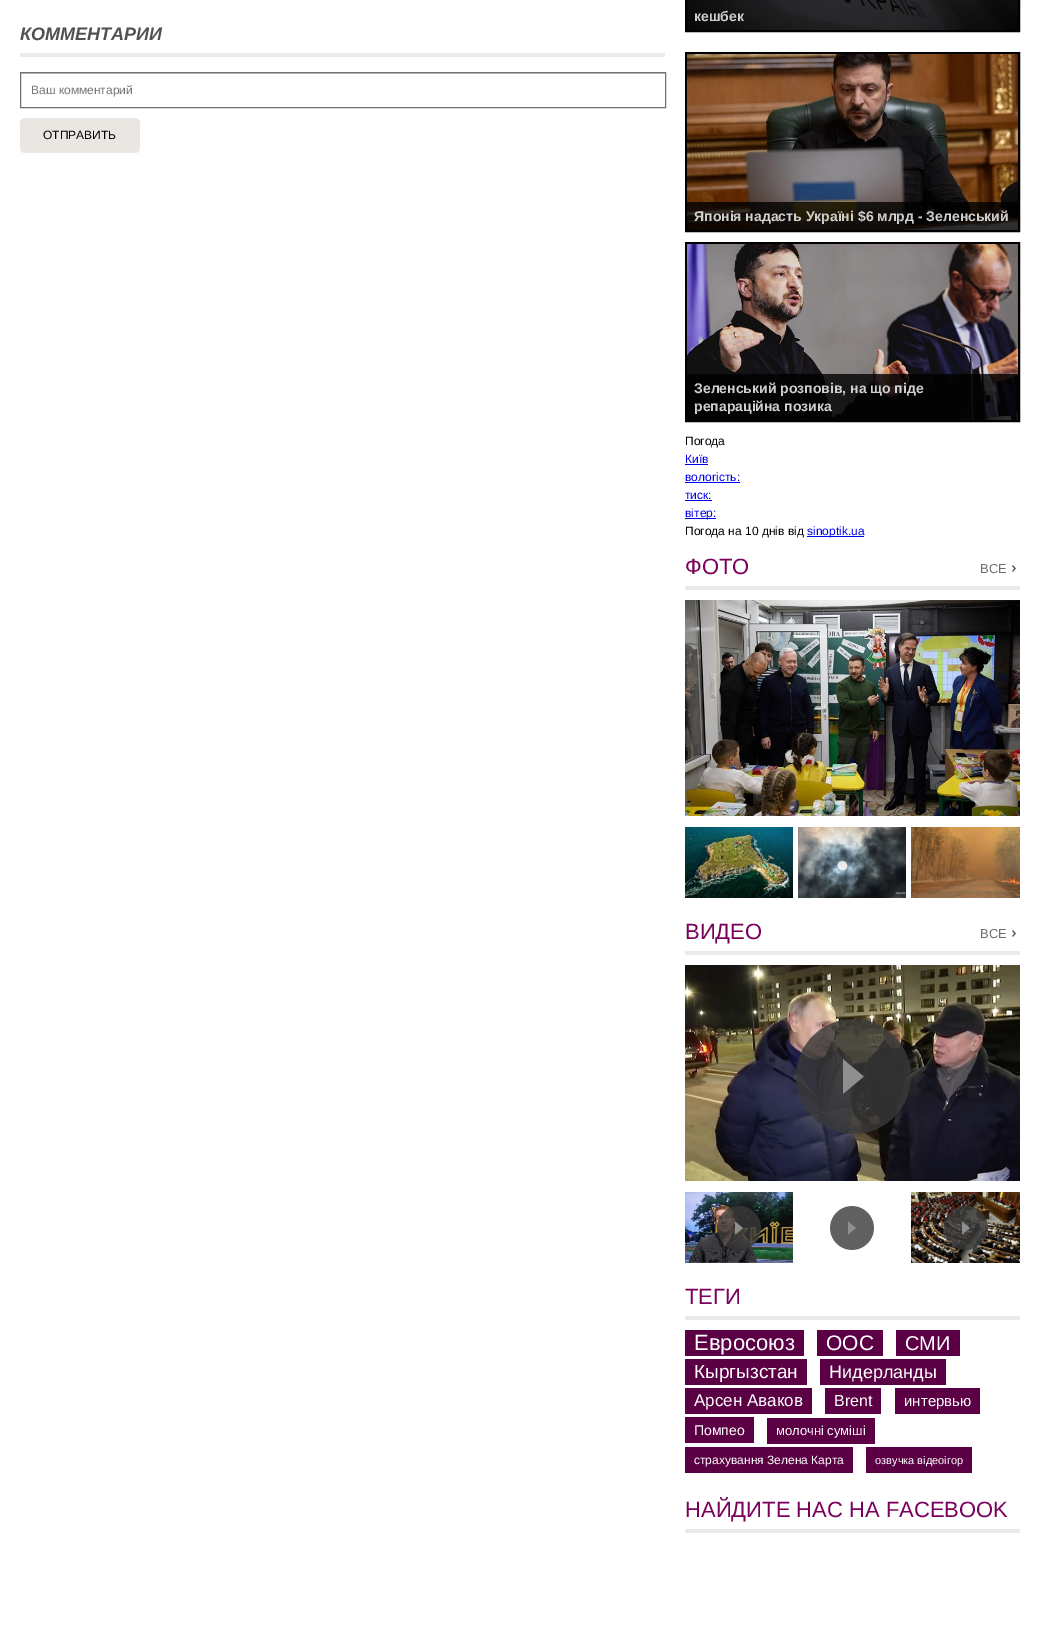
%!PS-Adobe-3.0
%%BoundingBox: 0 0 1040 1641
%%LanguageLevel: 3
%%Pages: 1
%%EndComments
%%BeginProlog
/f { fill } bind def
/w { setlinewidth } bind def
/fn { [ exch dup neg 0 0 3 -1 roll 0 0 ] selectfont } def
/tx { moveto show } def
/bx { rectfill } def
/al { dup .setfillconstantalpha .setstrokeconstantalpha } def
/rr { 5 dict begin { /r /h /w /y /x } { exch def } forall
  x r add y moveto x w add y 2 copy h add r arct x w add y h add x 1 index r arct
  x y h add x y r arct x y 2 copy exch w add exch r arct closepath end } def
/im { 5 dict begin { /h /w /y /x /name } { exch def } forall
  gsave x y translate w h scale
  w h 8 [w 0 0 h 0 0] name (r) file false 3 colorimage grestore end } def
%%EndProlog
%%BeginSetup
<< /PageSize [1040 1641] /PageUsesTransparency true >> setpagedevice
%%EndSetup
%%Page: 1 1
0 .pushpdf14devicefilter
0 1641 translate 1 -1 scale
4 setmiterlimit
1 setgray
0 0 1040 1641 bx
0.918 setgray
20 53 645 4 bx
/LiberationSans-BoldItalic 18 fn
0.318 setgray
(КОММЕНТАРИИ) 20 40 tx
0.788 setgray
21 73 644 1 bx
0.443 setgray
20.5 72.5 645 35 rectstroke
/LiberationSans-Regular 12 fn
0.459 setgray
(Ваш комментарий) 31 94 tx
0.918 0.906 0.886 setrgbcolor
20 118 120 35 5 rr f
0 setgray
(ОТПРАВИТЬ) 43 139 tx
2 w
686 -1 333 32 rectstroke
(image0.raw) 687 0 331 30 im
/LiberationSans-Bold 14 fn
0.812 setgray
(кешбек) 694 21 tx
0 setgray
686 53 333 178 rectstroke
(image1.raw) 687 54 331 176 im
0.8 al
687 202 331 28 bx
1 al
0.812 setgray
(Японія надасть Україні $6 млрд - Зеленський) 694 221 tx
0 setgray
686 243 333 178 rectstroke
(image2.raw) 687 244 331 176 im
0.8 al
687 374 331 46 bx
1 al
0.812 setgray
(Зеленський розповів, на що піде) 694 393 tx
(репараційна позика) 694 411 tx
/LiberationSans-Regular 12 fn
0 setgray
(Погода) 685 445 tx
0 0 0.933 setrgbcolor
(Київ) 685 463 tx
685 464 23 1 bx
(вологість:) 685 481 tx
685 482 55 1 bx
(тиск:) 685 499 tx
685 500 27 1 bx
685 518 31 1 bx
(вітер:) 685 517 tx
0 setgray
(Погода на 10 днів від) 685 535 tx
0 0 0.933 setrgbcolor
807 536 57 1 bx
(sinoptik.ua) 807 535 tx
0.918 setgray
685 586 335 4 bx
/LiberationSans-Regular 22 fn
0.475 0 0.357 setrgbcolor
(ФОТО) 685 574 tx
/LiberationSans-Regular 13 fn
0.431 setgray
(ВСЕ) 980 573 tx
(image3.raw) 1012 565 4 7 im
(image4.raw) 685 600 335 216 im
(image5.raw) 685 827 108 71 im
(image6.raw) 798 827 108 71 im
(image7.raw) 911 827 109 71 im
0.918 setgray
685 951 335 4 bx
/LiberationSans-Regular 22 fn
0.475 0 0.357 setrgbcolor
(ВИДЕО) 685 939 tx
/LiberationSans-Regular 13 fn
0.431 setgray
(ВСЕ) 980 938 tx
(image3.raw) 1012 930 4 7 im
(image8.raw) 685 965 335 216 im
(image9.raw) 796 1019 115 115 im
(image10.raw) 685 1192 108 71 im
(image11.raw) 717 1206 44 44 im
(image12.raw) 830 1206 44 44 im
(image13.raw) 911 1192 109 71 im
(image14.raw) 944 1206 44 44 im
0.918 setgray
685 1316 335 4 bx
/LiberationSans-Regular 22 fn
0.475 0 0.357 setrgbcolor
(ТЕГИ) 685 1304 tx
0.357 0 0.271 setrgbcolor
685 1330 119 26 bx
1 setgray
(Евросоюз) 694 1350 tx
0.357 0 0.271 setrgbcolor
817 1330 66 26 bx
/LiberationSans-Regular 21 fn
1 setgray
(ООС) 826 1350 tx
0.357 0 0.271 setrgbcolor
896 1330 64 26 bx
/LiberationSans-Regular 20 fn
1 setgray
(СМИ) 905 1350 tx
0.357 0 0.271 setrgbcolor
685 1359 122 26 bx
/LiberationSans-Regular 19 fn
1 setgray
(Кыргызстан) 694 1378 tx
0.357 0 0.271 setrgbcolor
820 1359 126 26 bx
/LiberationSans-Regular 18 fn
1 setgray
(Нидерланды) 829 1378 tx
0.357 0 0.271 setrgbcolor
685 1388 127 26 bx
/LiberationSans-Regular 17 fn
1 setgray
(Арсен Аваков) 694 1406 tx
0.357 0 0.271 setrgbcolor
825 1388 56 26 bx
/LiberationSans-Regular 16 fn
1 setgray
(Brent) 834 1406 tx
0.357 0 0.271 setrgbcolor
895 1388 85 26 bx
/LiberationSans-Regular 15 fn
1 setgray
(интервью) 904 1406 tx
0.357 0 0.271 setrgbcolor
685 1417 69 26 bx
/LiberationSans-Regular 14 fn
1 setgray
(Помпео) 694 1435 tx
0.357 0 0.271 setrgbcolor
767 1418 108 26 bx
/LiberationSans-Regular 13 fn
1 setgray
(молочні суміші) 776 1435 tx
0.357 0 0.271 setrgbcolor
685 1447 168 26 bx
/LiberationSans-Regular 12 fn
1 setgray
(страхування Зелена Карта) 694 1464 tx
0.357 0 0.271 setrgbcolor
866 1447 106 26 bx
/LiberationSans-Regular 11 fn
1 setgray
(озвучка відеоігор) 875 1464 tx
0.918 setgray
685 1529 335 4 bx
/LiberationSans-Regular 22 fn
0.475 0 0.357 setrgbcolor
(НАЙДИТЕ НАС НА FACEBOOK) 685 1517 tx
.poppdf14devicefilter showpage
%%EOF
